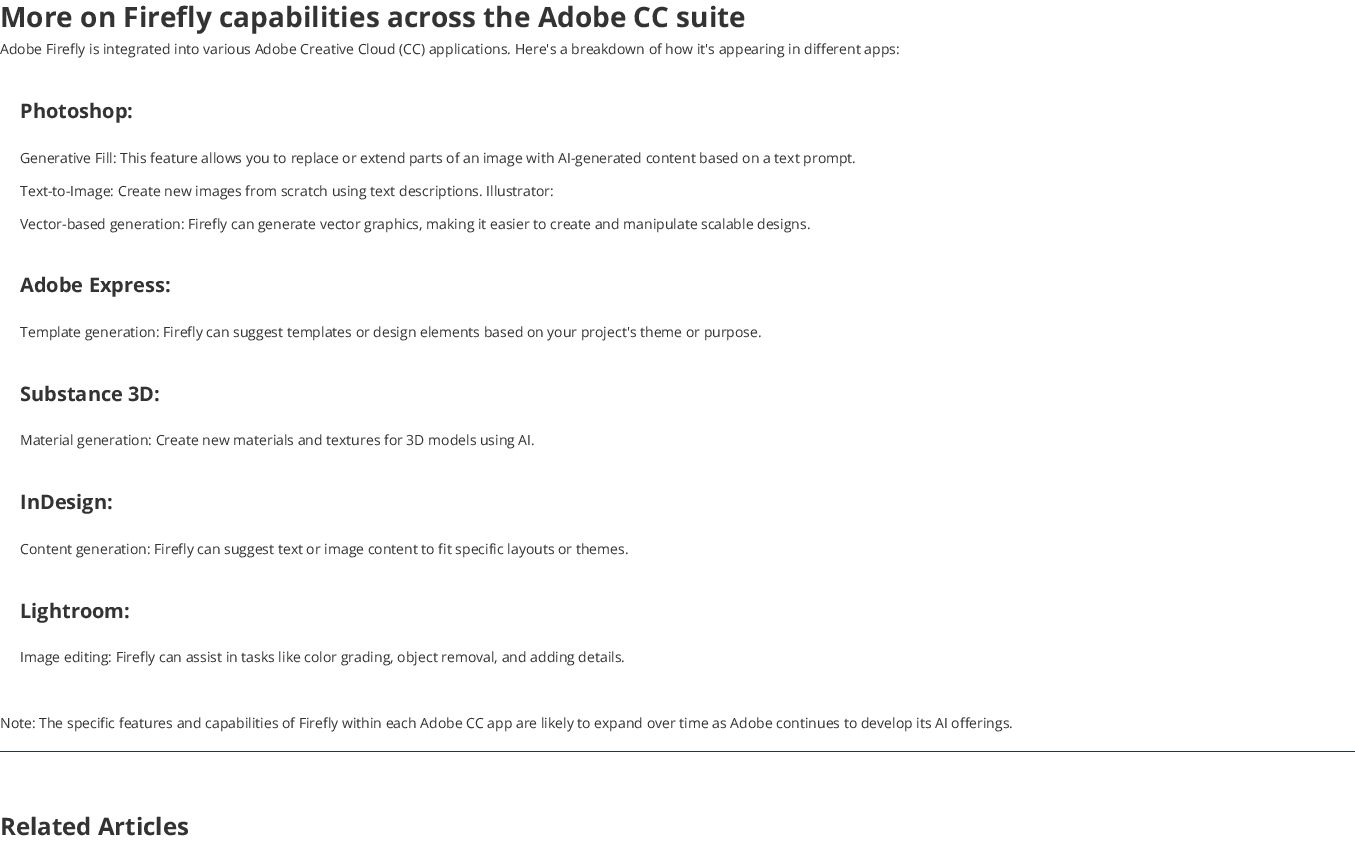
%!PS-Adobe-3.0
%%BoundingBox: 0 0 1355 842
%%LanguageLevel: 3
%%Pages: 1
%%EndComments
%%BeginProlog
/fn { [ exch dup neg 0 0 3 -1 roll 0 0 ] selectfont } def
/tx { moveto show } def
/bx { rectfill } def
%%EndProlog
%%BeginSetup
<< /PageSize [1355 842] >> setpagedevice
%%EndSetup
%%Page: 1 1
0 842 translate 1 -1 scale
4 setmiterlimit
1 setgray
0 0 1355 842 bx
/OpenSans-Bold 28 fn
0.2 setgray
(More on Firefly capabilities across the Adobe CC suite) 0 27 tx
/OpenSans-Regular 14 fn
(Adobe Firefly is integrated into various Adobe Creative Cloud \(CC\) applications. Here's a breakdown of how it's appearing in different apps:) 0 54 tx
/OpenSans-Bold 20 fn
(Photoshop:) 20 118 tx
/OpenSans-Regular 14 fn
(Generative Fill: This feature allows you to replace or extend parts of an image with AI-generated content based on a text prompt.) 20 163 tx
(Text-to-Image: Create new images from scratch using text descriptions. Illustrator:) 20 196 tx
(Vector-based generation: Firefly can generate vector graphics, making it easier to create and manipulate scalable designs.) 20 229 tx
/OpenSans-Bold 20 fn
(Adobe Express:) 20 292 tx
/OpenSans-Regular 14 fn
(Template generation: Firefly can suggest templates or design elements based on your project's theme or purpose.) 20 337 tx
/OpenSans-Bold 20 fn
(Substance 3D:) 20 401 tx
/OpenSans-Regular 14 fn
(Material generation: Create new materials and textures for 3D models using AI.) 20 445 tx
/OpenSans-Bold 20 fn
(InDesign:) 20 509 tx
/OpenSans-Regular 14 fn
(Content generation: Firefly can suggest text or image content to fit specific layouts or themes.) 20 554 tx
/OpenSans-Bold 20 fn
(Lightroom:) 20 618 tx
/OpenSans-Regular 14 fn
(Image editing: Firefly can assist in tasks like color grading, object removal, and adding details.) 20 662 tx
(Note: The specific features and capabilities of Firefly within each Adobe CC app are likely to expand over time as Adobe continues to develop its AI offerings.) 0 728 tx
0.141 0.212 0.29 setrgbcolor
0 751 1355 1 bx
/OpenSans-Bold 24 fn
0.2 setgray
(Related Articles) 0 835 tx
showpage
%%EOF
